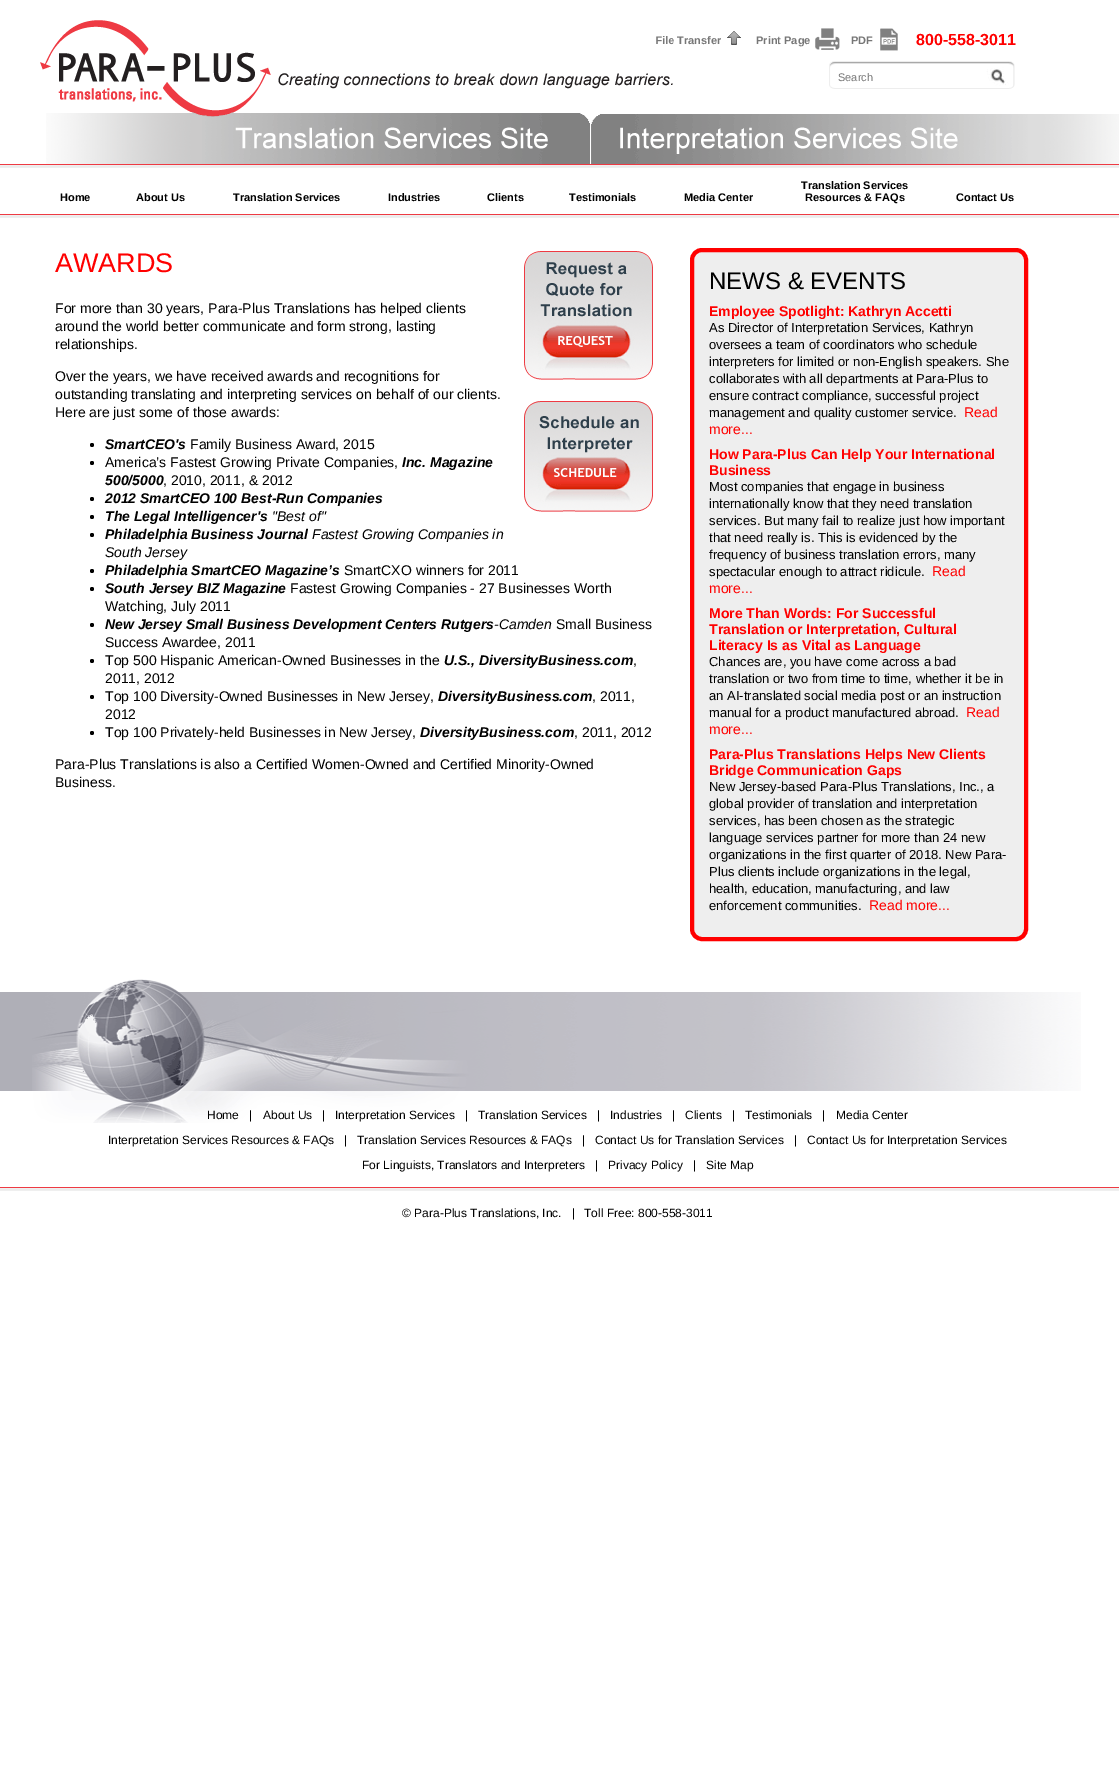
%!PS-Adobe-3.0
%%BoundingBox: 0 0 1119 1788
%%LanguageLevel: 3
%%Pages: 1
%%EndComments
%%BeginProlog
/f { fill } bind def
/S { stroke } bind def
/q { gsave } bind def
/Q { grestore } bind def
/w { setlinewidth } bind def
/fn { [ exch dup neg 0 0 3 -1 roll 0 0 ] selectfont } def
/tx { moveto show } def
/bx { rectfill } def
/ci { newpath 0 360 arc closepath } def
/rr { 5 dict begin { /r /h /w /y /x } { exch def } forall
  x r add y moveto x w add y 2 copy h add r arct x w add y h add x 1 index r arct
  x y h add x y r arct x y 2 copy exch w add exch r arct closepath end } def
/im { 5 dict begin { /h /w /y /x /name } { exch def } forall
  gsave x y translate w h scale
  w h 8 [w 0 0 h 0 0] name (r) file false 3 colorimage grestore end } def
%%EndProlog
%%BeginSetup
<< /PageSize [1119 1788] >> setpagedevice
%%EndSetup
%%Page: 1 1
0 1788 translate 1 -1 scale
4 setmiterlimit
1 setgray
0 0 1119 1788 bx
/LiberationSans-Bold 11 fn
0.467 setgray
(File Transfer) 655 44 tx
(image5.raw) 46 113 544 51 im
(image6.raw) 591 114 528 50 im
(image0.raw) 40 20 633 97 im
(image1.raw) 727 31 14 14 im
(Print Page) 756 44 tx
(image2.raw) 815 28 25 22 im
(PDF) 851 44 tx
(image3.raw) 880 28 18 23 im
/LiberationSans-Bold 16 fn
1 0 0 setrgbcolor
(800-558-3011) 916 45 tx
(image4.raw) 829 61 186 28 im
/LiberationSans-Regular 11 fn
0.467 setgray
(Search) 838 81 tx
(image7.raw) 0 164 1119 4 im
/LiberationSans-Bold 11 fn
0 setgray
(Home) 60 201 tx
(About Us) 136 201 tx
(Translation Services) 233 201 tx
(Industries) 388 201 tx
(Clients) 487 201 tx
(Testimonials) 569 201 tx
(Media Center) 684 201 tx
(Translation Services) 801 189 tx
(Resources & FAQs) 805 201 tx
(Contact Us) 956 201 tx
(image7.raw) 0 214 1119 4 im
/LiberationSans-Regular 27 fn
1 0 0 setrgbcolor
(AWARDS) 55 272 tx
(image8.raw) 524 251 129 129 im
(image9.raw) 524 401 129 111 im
/LiberationSans-Regular 14 fn
0 setgray
(For more than 30 years, Para-Plus Translations has helped clients) 55 313 tx
(around the world better communicate and form strong, lasting) 55 331 tx
(relationships.) 55 349 tx
(Over the years, we have received awards and recognitions for) 55 381 tx
(outstanding translating and interpreting services on behalf of our clients.) 55 399 tx
(Here are just some of those awards:) 55 417 tx
92 445 2 ci f
/LiberationSans-BoldItalic 14 fn
(SmartCEO's) 105 449 tx
/LiberationSans-Regular 14 fn
(Family Business Award, 2015) 190 449 tx
92 463 2 ci f
(America’s Fastest Growing Private Companies,) 105 467 tx
/LiberationSans-BoldItalic 14 fn
(Inc. Magazine) 402 467 tx
(500/5000) 105 485 tx
/LiberationSans-Regular 14 fn
(, 2010, 2011, & 2012) 163 485 tx
92 499 2 ci f
/LiberationSans-BoldItalic 14 fn
(2012 SmartCEO 100 Best-Run Companies) 105 503 tx
92 517 2 ci f
(The Legal Intelligencer's) 105 521 tx
/LiberationSans-Italic 14 fn
("Best of") 272 521 tx
92 535 2 ci f
/LiberationSans-BoldItalic 14 fn
(Philadelphia Business Journal) 105 539 tx
/LiberationSans-Italic 14 fn
(Fastest Growing Companies in) 312 539 tx
(South Jersey) 105 557 tx
92 571 2 ci f
/LiberationSans-BoldItalic 14 fn
(Philadelphia SmartCEO Magazine’s) 105 575 tx
/LiberationSans-Regular 14 fn
(SmartCXO winners for 2011) 344 575 tx
92 589 2 ci f
/LiberationSans-BoldItalic 14 fn
(South Jersey BIZ Magazine) 105 593 tx
/LiberationSans-Regular 14 fn
(Fastest Growing Companies - 27 Businesses Worth) 290 593 tx
(Watching, July 2011) 105 611 tx
92 625 2 ci f
/LiberationSans-BoldItalic 14 fn
(New Jersey Small Business Development Centers Rutgers) 105 629 tx
/LiberationSans-Italic 14 fn
(-Camden) 494 629 tx
/LiberationSans-Regular 14 fn
(Small Business) 556 629 tx
(Success Awardee, 2011) 105 647 tx
92 661 2 ci f
(Top 500 Hispanic American-Owned Businesses in the) 105 665 tx
/LiberationSans-BoldItalic 14 fn
(U.S., DiversityBusiness.com) 444 665 tx
/LiberationSans-Regular 14 fn
(,) 633 665 tx
(2011, 2012) 105 683 tx
92 697 2 ci f
(Top 100 Diversity-Owned Businesses in New Jersey,) 105 701 tx
/LiberationSans-BoldItalic 14 fn
(DiversityBusiness.com) 438 701 tx
/LiberationSans-Regular 14 fn
(, 2011,) 592 701 tx
(2012) 105 719 tx
92 733 2 ci f
(Top 100 Privately-held Businesses in New Jersey,) 105 737 tx
/LiberationSans-BoldItalic 14 fn
(DiversityBusiness.com) 420 737 tx
/LiberationSans-Regular 14 fn
(, 2011, 2012) 574 737 tx
(Para-Plus Translations is also a Certified Women-Owned and Certified Minority-Owned) 55 769 tx
(Business.) 55 787 tx
0.933 setgray
692 250 334 689 10 rr q f Q
1 0 0 setrgbcolor
4 w
S
/LiberationSans-Regular 24 fn
0 setgray
(NEWS & EVENTS) 709 289 tx
/LiberationSans-Bold 14 fn
1 0 0 setrgbcolor
(Employee Spotlight: Kathryn Accetti) 709 316 tx
/LiberationSans-Regular 13 fn
0 setgray
(As Director of Interpretation Services, Kathryn) 709 332 tx
(oversees a team of coordinators who schedule) 709 349 tx
(interpreters for limited or non-English speakers. She) 709 366 tx
(collaborates with all departments at Para-Plus to) 709 383 tx
(ensure contract compliance, successful project) 709 400 tx
(management and quality customer service.) 709 417 tx
/LiberationSans-Regular 14 fn
1 0 0 setrgbcolor
(Read) 964 417 tx
(more...) 709 434 tx
/LiberationSans-Bold 14 fn
(How Para-Plus Can Help Your International) 709 459 tx
(Business) 709 475 tx
/LiberationSans-Regular 13 fn
0 setgray
(Most companies that engage in business) 709 491 tx
(internationally know that they need translation) 709 508 tx
(services. But many fail to realize just how important) 709 525 tx
(that need really is. This is evidenced by the) 709 542 tx
(frequency of business translation errors, many) 709 559 tx
(spectacular enough to attract ridicule.) 709 576 tx
/LiberationSans-Regular 14 fn
1 0 0 setrgbcolor
(Read) 932 576 tx
(more...) 709 593 tx
/LiberationSans-Bold 14 fn
(More Than Words: For Successful) 709 618 tx
(Translation or Interpretation, Cultural) 709 634 tx
(Literacy Is as Vital as Language) 709 650 tx
/LiberationSans-Regular 13 fn
0 setgray
(Chances are, you have come across a bad) 709 666 tx
(translation or two from time to time, whether it be in) 709 683 tx
(an AI-translated social media post or an instruction) 709 700 tx
(manual for a product manufactured abroad.) 709 717 tx
/LiberationSans-Regular 14 fn
1 0 0 setrgbcolor
(Read) 966 717 tx
(more...) 709 734 tx
/LiberationSans-Bold 14 fn
(Para-Plus Translations Helps New Clients) 709 759 tx
(Bridge Communication Gaps) 709 775 tx
/LiberationSans-Regular 13 fn
0 setgray
(New Jersey-based Para-Plus Translations, Inc., a) 709 791 tx
(global provider of translation and interpretation) 709 808 tx
(services, has been chosen as the strategic) 709 825 tx
(language services partner for more than 24 new) 709 842 tx
(organizations in the first quarter of 2018. New Para-) 709 859 tx
(Plus clients include organizations in the legal,) 709 876 tx
(health, education, manufacturing, and law) 709 893 tx
(enforcement communities.) 709 910 tx
/LiberationSans-Regular 14 fn
1 0 0 setrgbcolor
(Read more...) 869 910 tx
0.686 0.686 0.718 setrgbcolor
0 992 97 99 bx
(image10.raw) 32 979 1049 144 im
/LiberationSans-Regular 12 fn
0 setgray
(Home) 207 1119 tx
(|) 249 1119 tx
(About Us) 263 1119 tx
(|) 322 1119 tx
(Interpretation Services) 335 1119 tx
(|) 465 1119 tx
(Translation Services) 478 1119 tx
(|) 597 1119 tx
(Industries) 610 1119 tx
(|) 672 1119 tx
(Clients) 685 1119 tx
(|) 732 1119 tx
(Testimonials) 745 1119 tx
(|) 822 1119 tx
(Media Center) 836 1119 tx
(Interpretation Services Resources & FAQs) 108 1144 tx
(|) 344 1144 tx
(Translation Services Resources & FAQs) 357 1144 tx
(|) 582 1144 tx
(Contact Us for Translation Services) 595 1144 tx
(|) 794 1144 tx
(Contact Us for Interpretation Services) 807 1144 tx
(For Linguists, Translators and Interpreters) 362 1169 tx
(|) 595 1169 tx
(Privacy Policy) 608 1169 tx
(|) 693 1169 tx
(Site Map) 706 1169 tx
(image7.raw) 0 1187 1119 4 im
(© Para-Plus Translations, Inc.   |) 402 1217 tx
(Toll Free: 800-558-3011) 584 1217 tx
showpage
%%EOF
